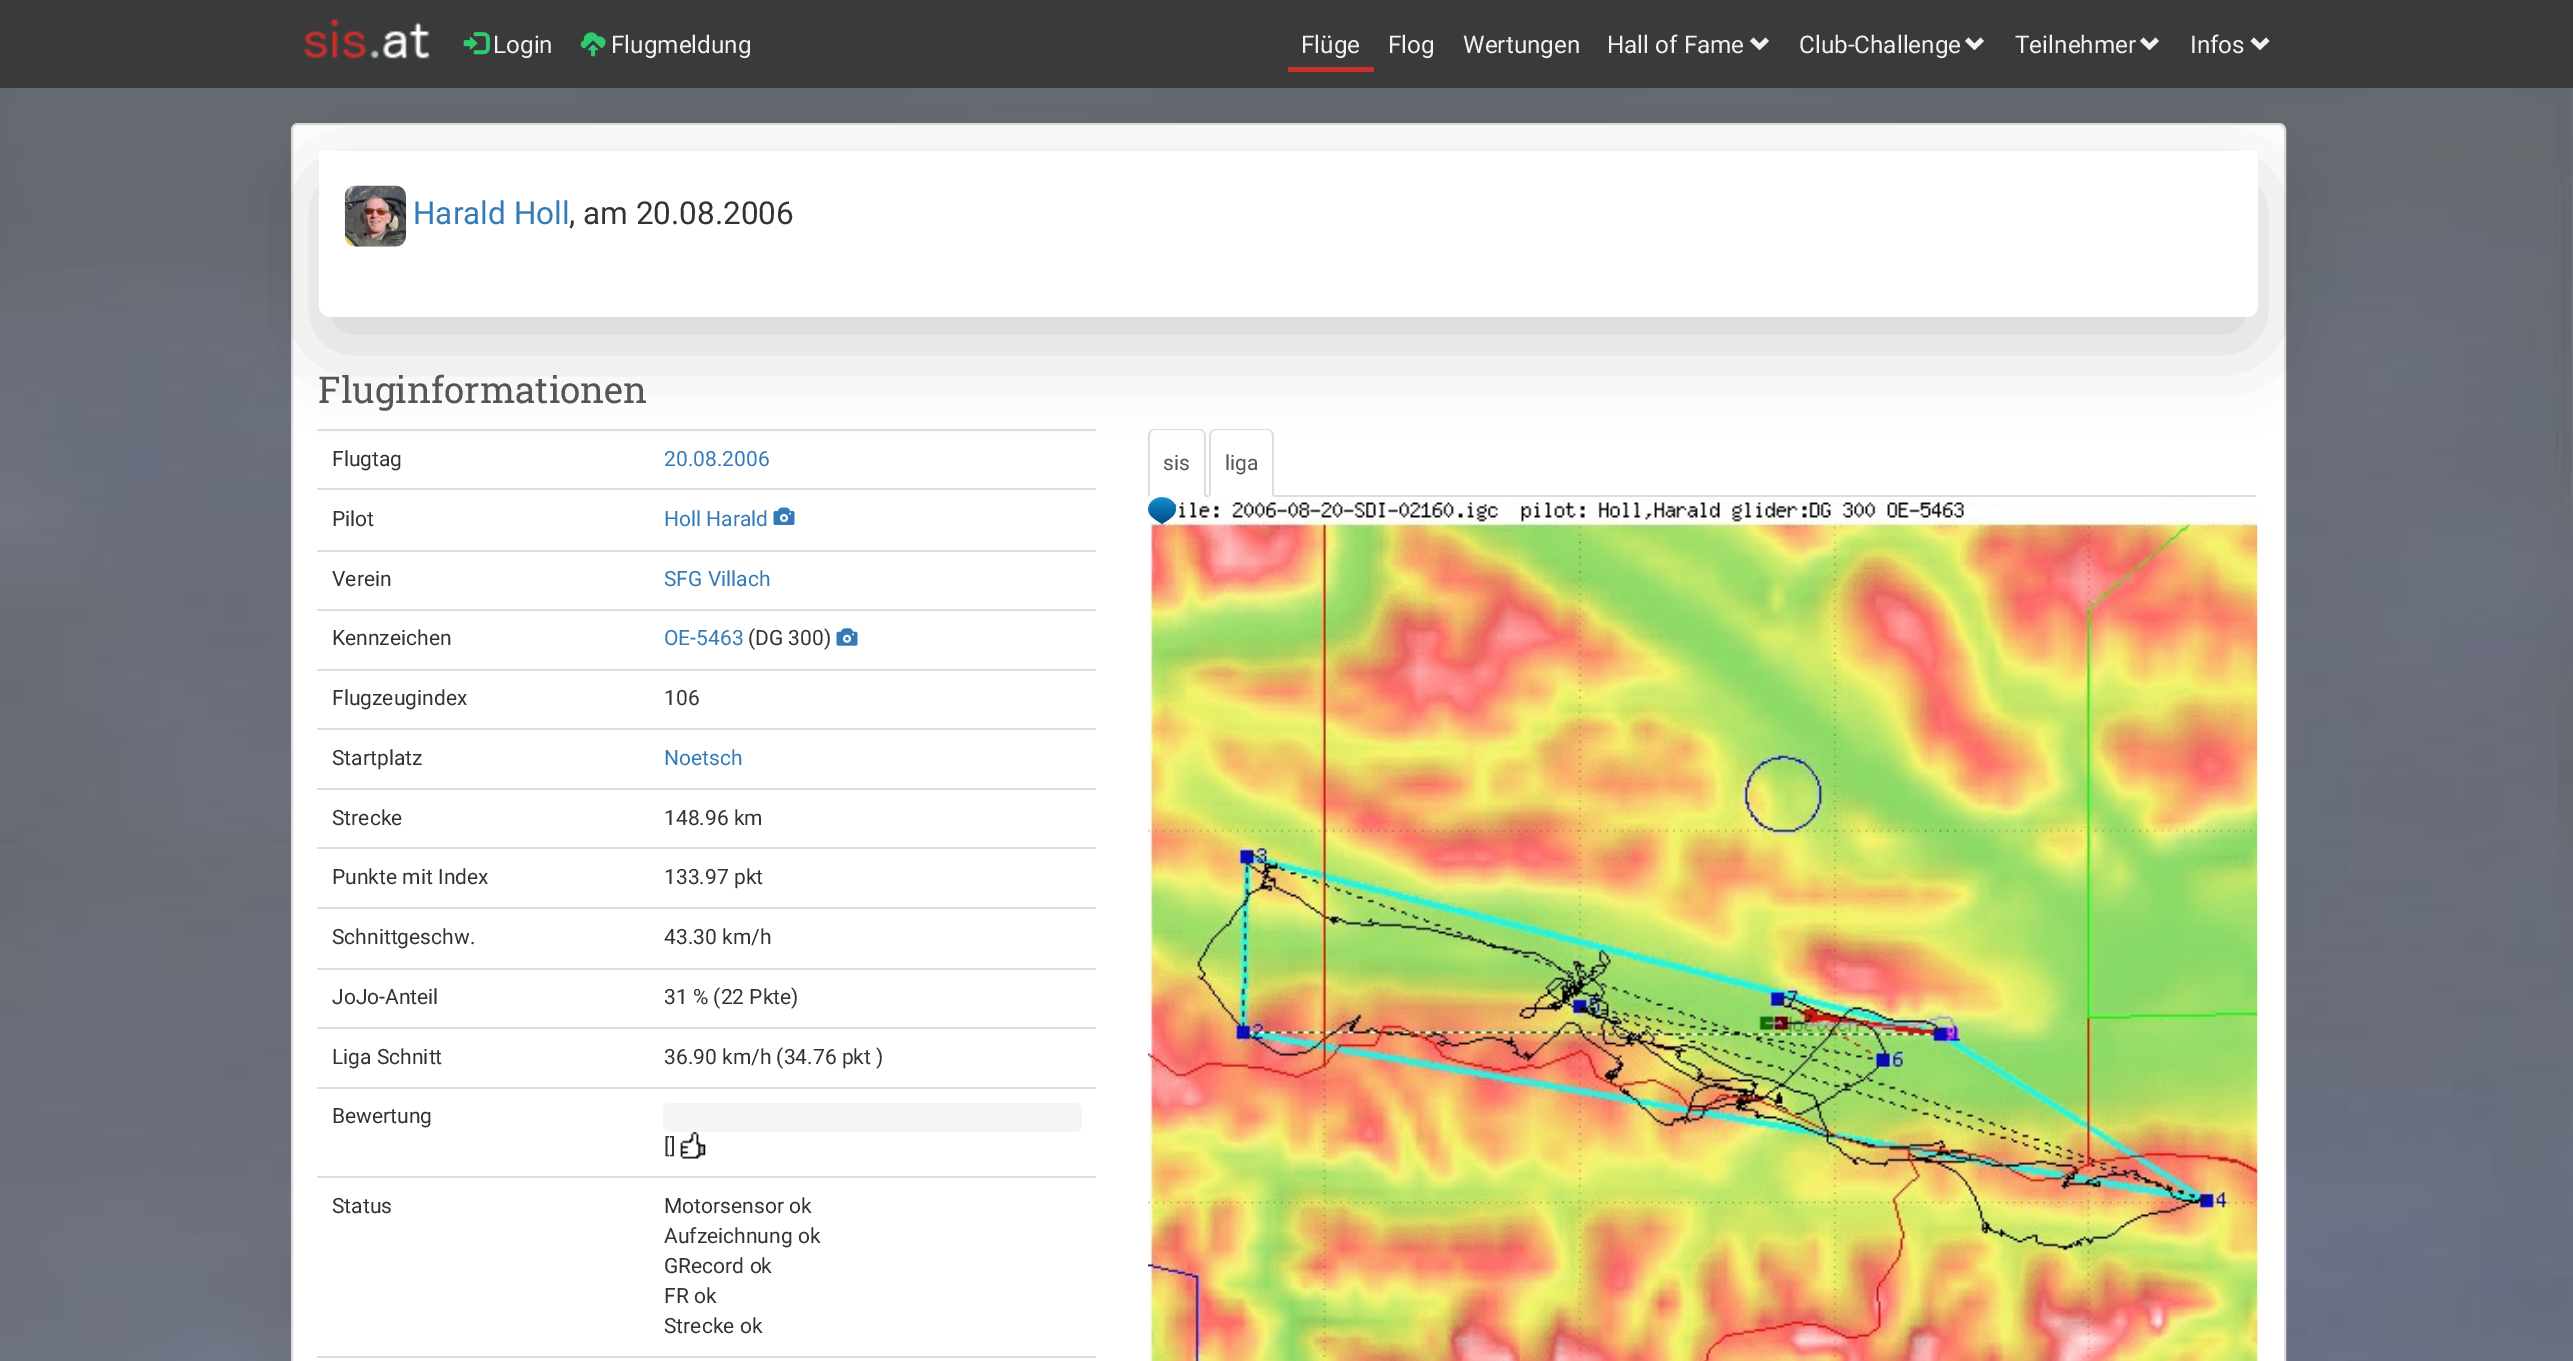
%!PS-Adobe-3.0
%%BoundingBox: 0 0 2573 1361
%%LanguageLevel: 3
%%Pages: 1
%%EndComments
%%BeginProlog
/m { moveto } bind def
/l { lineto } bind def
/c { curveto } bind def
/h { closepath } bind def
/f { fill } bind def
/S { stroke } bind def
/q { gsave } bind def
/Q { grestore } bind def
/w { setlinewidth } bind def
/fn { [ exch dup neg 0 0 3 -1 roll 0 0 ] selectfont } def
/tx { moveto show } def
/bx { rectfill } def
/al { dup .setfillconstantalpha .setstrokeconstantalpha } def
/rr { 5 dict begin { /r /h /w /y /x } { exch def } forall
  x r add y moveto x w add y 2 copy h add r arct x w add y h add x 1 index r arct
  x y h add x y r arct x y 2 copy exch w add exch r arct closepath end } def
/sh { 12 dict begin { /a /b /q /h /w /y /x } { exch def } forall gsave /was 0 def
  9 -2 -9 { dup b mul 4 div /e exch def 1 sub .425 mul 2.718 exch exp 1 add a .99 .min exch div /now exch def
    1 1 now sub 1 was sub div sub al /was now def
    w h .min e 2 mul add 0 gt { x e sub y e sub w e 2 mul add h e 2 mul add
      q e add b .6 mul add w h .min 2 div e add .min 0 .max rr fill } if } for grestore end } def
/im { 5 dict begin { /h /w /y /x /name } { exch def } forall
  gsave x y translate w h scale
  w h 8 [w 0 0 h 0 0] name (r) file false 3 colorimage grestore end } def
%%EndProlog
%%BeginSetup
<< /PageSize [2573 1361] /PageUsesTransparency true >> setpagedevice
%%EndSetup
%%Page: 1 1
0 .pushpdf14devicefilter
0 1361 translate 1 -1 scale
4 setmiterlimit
1 setgray
0 0 2573 1361 bx
(image0.raw) 0 88 2573 1273 im
0.227 setgray
0 0 2573 88 bx
(image1.raw) 304 18 126 41 im
(image2.raw) 463 32 27 23 im
/Roboto-Regular 24.25 fn
0.949 setgray
(Login) 493 53 tx
(image3.raw) 580 32 26 25 im
(Flugmeldung) 611 53 tx
0.788 0.188 0.173 setrgbcolor
1288 67 86 5 bx
0.949 setgray
(Flüge) 1301 53 tx
(Flog) 1388 53 tx
(Wertungen) 1463 53 tx
(Hall of Fame) 1607 53 tx
1769 41 m 1759.5 50 l 1750 41 l 1753.5 37.5 l 1759.5 43.5 l 1765.5 37.5 l h f
(Club-Challenge) 1799 53 tx
1984 41 m 1974.5 50 l 1965 41 l 1968.5 37.5 l 1974.5 43.5 l 1980.5 37.5 l h f
(Teilnehmer) 2015 53 tx
2159 41 m 2149.5 50 l 2140 41 l 2143.5 37.5 l 2149.5 43.5 l 2155.5 37.5 l h f
(Infos) 2190 53 tx
2269.5 41 m 2260 50 l 2250.5 41 l 2254 37.5 l 2260 43.5 l 2266 37.5 l h f
1 setgray
292 124 1993 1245 6 rr q f Q
0.867 setgray
2 w
S
0 setgray
319 179 1939 166 11 42 0.18 sh
1 setgray
319 151 m 2258 151 l 2258 306 l 2258 312 2253 317 2247 317 c 330 317 l 324 317 319 312 319 306 c h f
(image4.raw) 344 185 62 62 im
/Roboto-Regular 31.5 fn
0.2 0.478 0.718 setrgbcolor
(Harald Holl) 413 224 tx
0.2 setgray
(, am 20.08.2006) 569 224 tx
/RobotoSlab-Regular 36.75 fn
0.333 setgray
(Fluginformationen) 318 403 tx
/Roboto-Regular 21 fn
0.2 setgray
(Flugtag) 332 466 tx
0.867 setgray
317 429 779 2 bx
0.2 0.478 0.718 setrgbcolor
(20.08.2006) 664 466 tx
0.2 setgray
(Pilot) 332 526 tx
0.867 setgray
317 488 779 2 bx
0.2 0.478 0.718 setrgbcolor
(Holl Harald) 664 526 tx
(image5.raw) 773 507 22 18 im
0.2 setgray
(Verein) 332 586 tx
0.867 setgray
317 550 779 2 bx
0.2 0.478 0.718 setrgbcolor
(SFG Villach) 664 586 tx
0.2 setgray
(Kennzeichen) 332 645 tx
0.867 setgray
317 609 779 2 bx
0.2 0.478 0.718 setrgbcolor
(OE-5463) 664 645 tx
0.2 setgray
(\(DG 300\)) 748 645 tx
(image6.raw) 836 628 22 18 im
(Flugzeugindex) 332 705 tx
0.867 setgray
317 669 779 2 bx
0.2 setgray
(106) 664 705 tx
(Startplatz) 332 765 tx
0.867 setgray
317 728 779 2 bx
0.2 0.478 0.718 setrgbcolor
(Noetsch) 664 765 tx
0.2 setgray
(Strecke) 332 825 tx
0.867 setgray
317 788 779 2 bx
0.2 setgray
(148.96 km) 664 825 tx
(Punkte mit Index) 332 884 tx
0.867 setgray
317 847 779 2 bx
0.2 setgray
(133.97 pkt) 664 884 tx
(Schnittgeschw.) 332 944 tx
0.867 setgray
317 907 779 2 bx
0.2 setgray
(43.30 km/h) 664 944 tx
(JoJo-Anteil) 332 1004 tx
0.867 setgray
317 968 779 2 bx
0.2 setgray
(31 % \(22 Pkte\)) 664 1004 tx
(Liga Schnitt) 332 1064 tx
0.867 setgray
317 1027 779 2 bx
0.2 setgray
(36.90 km/h \(34.76 pkt \)) 664 1064 tx
(Bewertung) 332 1123 tx
0.867 setgray
317 1087 779 2 bx
0.961 setgray
663 1103 419 29 7 rr f
0.2 setgray
([]) 664 1153 tx
(image7.raw) 680 1132 26 27 im
(Status) 332 1213 tx
0.867 setgray
317 1176 779 2 bx
0.2 setgray
(Motorsensor ok) 664 1213 tx
(Aufzeichnung ok) 664 1243 tx
(GRecord ok) 664 1273 tx
(FR ok) 664 1303 tx
(Strecke ok) 664 1333 tx
0.867 setgray
317 1356 779 2 bx
1206 495 1050 2 bx
1155 429 m 1153 429 1151 430 1150 431 c 1151 432 l 1152 431 1153 430 1155 430 c 1199 430 l 1200 430 1202 431 1203 432 c 1204 431 l 1203 430 1201 429 1199 429 c h f
1204 431 m 1206 434 l 1206 497 l 1204 495 l 1204 436 l 1204 434 1204 433 1203 432 c h f
1148 497 m 1150 495 l 1150 436 l 1150 435 1150 433 1151 432 c 1150 431 l 1149 432 1148 434 1148 436 c h f
0.333 setgray
(sis) 1163 470 tx
1 setgray
1216 429 m 1267 429 l 1271 429 1274 432 1274 436 c 1274 497 l 1209 497 l 1209 436 l 1209 432 1212 429 1216 429 c h f
0.867 setgray
1216 429 m 1214 429 1212 430 1211 431 c 1212 432 l 1213 431 1214 430 1216 430 c 1267 430 l 1269 430 1270 431 1271 432 c 1272 431 l 1271 430 1269 429 1267 429 c h f
1272 431 m 1273 432 1274 434 1274 436 c 1274 497 l 1272 495 l 1272 436 l 1272 435 1272 433 1271 432 c h f
1209 497 m 1211 495 l 1211 436 l 1211 434 1212 433 1212 432 c 1211 431 l 1209 434 l h f
0.333 setgray
(liga) 1225 470 tx
(image8.raw) 1148 497 1110 864 im
(image9.raw) 1148 497 28 28 im
.poppdf14devicefilter showpage
%%EOF
